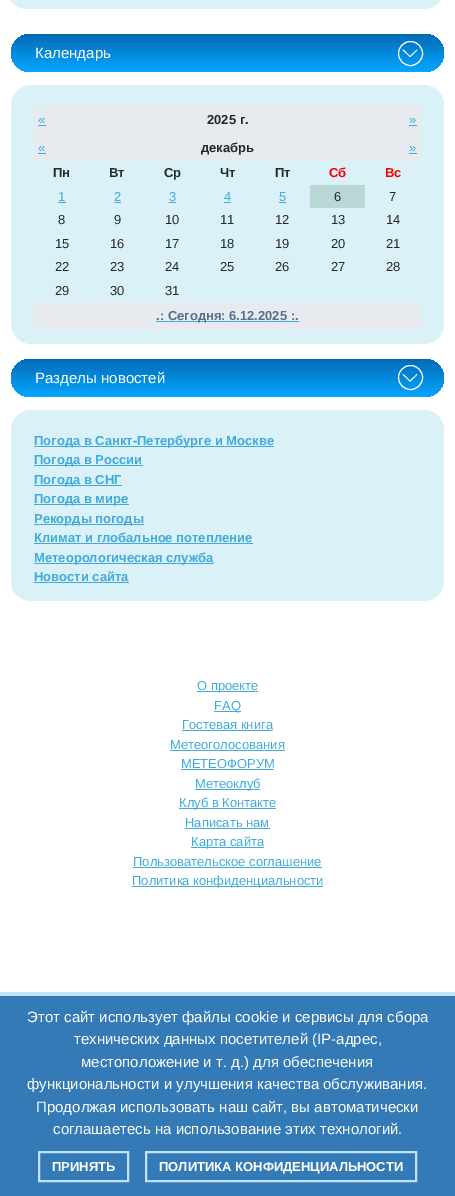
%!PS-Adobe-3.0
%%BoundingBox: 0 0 455 1196
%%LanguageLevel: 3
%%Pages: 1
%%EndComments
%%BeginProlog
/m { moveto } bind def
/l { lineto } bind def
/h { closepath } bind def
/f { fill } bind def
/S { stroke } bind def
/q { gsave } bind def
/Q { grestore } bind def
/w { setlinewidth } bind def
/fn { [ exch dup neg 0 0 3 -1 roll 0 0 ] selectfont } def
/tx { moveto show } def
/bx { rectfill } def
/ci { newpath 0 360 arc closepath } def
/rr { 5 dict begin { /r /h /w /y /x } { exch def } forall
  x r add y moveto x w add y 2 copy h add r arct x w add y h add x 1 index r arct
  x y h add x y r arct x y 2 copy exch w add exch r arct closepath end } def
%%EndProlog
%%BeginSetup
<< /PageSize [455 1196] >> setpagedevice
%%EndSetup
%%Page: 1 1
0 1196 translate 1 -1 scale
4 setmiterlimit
1 setgray
0 0 455 1196 bx
0.855 0.945 0.969 setrgbcolor
7 -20 437 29 20 rr f
q 11 34 433 38 19 rr clip newpath
<< /ShadingType 2 /ColorSpace /DeviceRGB /Coords [228 34 228 72] /Extend [true true] /Function << /FunctionType 2 /Domain [0 1] /C0 [0.016 0.416 0.714] /C1 [0.012 0.655 1] /N 1 >> >> shfill Q
/LiberationSans-Regular 15 fn
1 setgray
(Календарь) 35 58 tx
410.5 53.5 12 ci S
402.5 50 m 403.5 49.5 l 410.5 56.5 l 410 57 l h f
417 49.5 m 417.5 50 l 410.5 57 l 409.5 56.5 l h f
0.855 0.945 0.969 setrgbcolor
11 85 433 259 20 rr f
0.906 0.922 0.937 setrgbcolor
34 106 387 55 bx
/LiberationSans-Regular 13 fn
0.255 0.671 0.867 setrgbcolor
(«) 38 124 tx
38 125 8 1 bx
/LiberationSans-Bold 13 fn
0.157 setgray
(2025 г.) 207 124 tx
/LiberationSans-Regular 13 fn
0.255 0.671 0.867 setrgbcolor
(») 409 124 tx
409 125 8 1 bx
(«) 38 152 tx
38 153 8 1 bx
/LiberationSans-Bold 13 fn
0.157 setgray
(декабрь) 201 152 tx
/LiberationSans-Regular 13 fn
0.255 0.671 0.867 setrgbcolor
(») 409 152 tx
409 153 8 1 bx
/LiberationSans-Bold 13 fn
0.157 setgray
(Пн) 53 177 tx
(Вт) 109 177 tx
(Ср) 164 177 tx
(Чт) 220 177 tx
(Пт) 275 177 tx
1 0 0 setrgbcolor
(Сб) 329 177 tx
(Вс) 385 177 tx
/LiberationSans-Regular 13 fn
0.255 0.671 0.867 setrgbcolor
(1) 58 201 tx
58 202 8 1 bx
(2) 114 201 tx
114 202 7 1 bx
(3) 169 201 tx
169 202 7 1 bx
(4) 224 201 tx
224 202 7 1 bx
(5) 279 201 tx
279 202 7 1 bx
0.725 0.843 0.835 setrgbcolor
310 185 55 23 bx
0.157 setgray
(6) 334 201 tx
(7) 389 201 tx
(8) 58 224 tx
(9) 114 224 tx
(10) 165 224 tx
(11) 220 224 tx
(12) 275 224 tx
(13) 331 224 tx
(14) 386 224 tx
(15) 55 248 tx
(16) 110 248 tx
(17) 165 248 tx
(18) 220 248 tx
(19) 275 248 tx
(20) 331 248 tx
(21) 386 248 tx
(22) 55 271 tx
(23) 110 271 tx
(24) 165 271 tx
(25) 220 271 tx
(26) 275 271 tx
(27) 331 271 tx
(28) 386 271 tx
(29) 55 295 tx
(30) 110 295 tx
(31) 165 295 tx
0.906 0.922 0.937 setrgbcolor
34 302 387 28 bx
0.255 0.671 0.867 setrgbcolor
156 321 143 1 bx
/LiberationSans-Bold 13 fn
0.337 0.439 0.545 setrgbcolor
(.: Сегодня: 6.12.2025 :.) 156 320 tx
q 11 359 433 38 19 rr clip newpath
<< /ShadingType 2 /ColorSpace /DeviceRGB /Coords [228 359 228 397] /Extend [true true] /Function << /FunctionType 2 /Domain [0 1] /C0 [0.016 0.416 0.714] /C1 [0.012 0.655 1] /N 1 >> >> shfill Q
/LiberationSans-Regular 15 fn
1 setgray
(Разделы новостей) 35 383 tx
410.5 377.5 12 ci S
402.5 374.5 m 403.5 374 l 410.5 381 l 410 381.5 l h f
417 374 m 417.5 374.5 l 410.5 381.5 l 409.5 381 l h f
0.855 0.945 0.969 setrgbcolor
11 410 433 191 20 rr f
0.255 0.671 0.867 setrgbcolor
34 446 240 1 bx
/LiberationSans-Bold 13 fn
(Погода в Санкт-Петербурге и Москве) 34 445 tx
34 465 109 1 bx
(Погода в России) 34 464 tx
34 485 88 1 bx
(Погода в СНГ) 34 484 tx
34 504 95 1 bx
(Погода в мире) 34 503 tx
34 524 110 1 bx
(Рекорды погоды) 34 523 tx
(Климат и глобальное потепление) 34 542 tx
34 543 219 1 bx
34 563 180 1 bx
(Метеорологическая служба) 34 562 tx
(Новости сайта) 34 581 tx
34 582 95 1 bx
197 691 61 1 bx
/LiberationSans-Regular 13 fn
(О проекте) 197 690 tx
214 711 27 1 bx
(FAQ) 214 710 tx
(Гостевая книга) 182 729 tx
182 730 91 1 bx
(Метеоголосования) 170 749 tx
170 750 115 1 bx
(МЕТЕОФОРУМ) 181 768 tx
181 769 93 1 bx
195 789 65 1 bx
(Метеоклуб) 195 788 tx
179 808 97 1 bx
(Клуб в Контакте) 179 807 tx
(Написать нам) 185 827 tx
185 828 85 1 bx
191 847 73 1 bx
(Карта сайта) 191 846 tx
(Пользовательское соглашение) 133 866 tx
133 867 189 1 bx
132 886 191 1 bx
(Политика конфиденциальности) 132 885 tx
0.2 0.478 0.718 setrgbcolor
0 996 455 200 bx
0.749 0.886 1 setrgbcolor
0 992 455 4 bx
/LiberationSans-Regular 15 fn
1 setgray
(Этот сайт использует файлы cookie и сервисы для сбора) 27 1022 tx
(технических данных посетителей \(IP-адрес,) 74 1044 tx
(местоположение и т. д.\) для обеспечения) 81 1067 tx
(функциональности и улучшения качества обслуживания.) 27 1089 tx
(Продолжая использовать наш сайт, вы автоматически) 36 1112 tx
(соглашаетесь на использование этих технологий.) 53 1134 tx
0.749 0.886 1 setrgbcolor
2 w
39 1152 89 29 rectstroke
/LiberationSans-Bold 13 fn
1 setgray
(ПРИНЯТЬ) 52 1171 tx
0.749 0.886 1 setrgbcolor
146 1152 270 29 rectstroke
1 setgray
(ПОЛИТИКА КОНФИДЕНЦИАЛЬНОСТИ) 159 1171 tx
showpage
%%EOF
